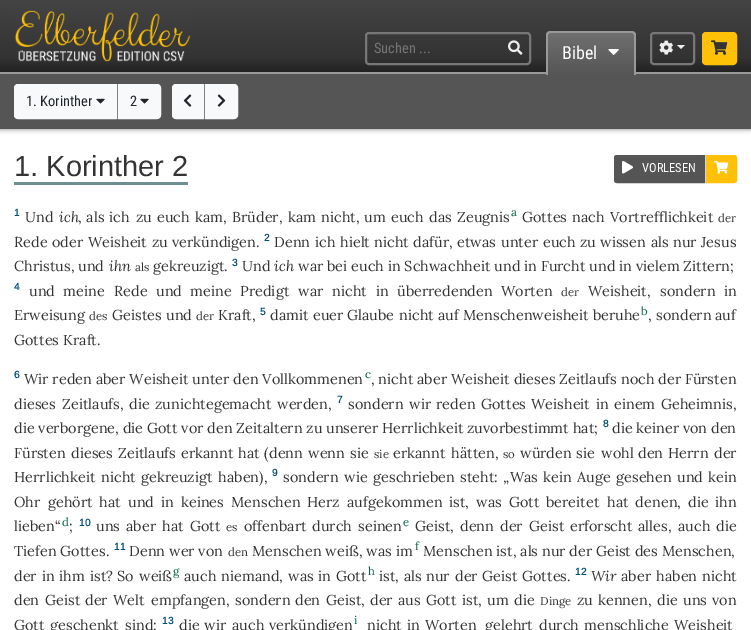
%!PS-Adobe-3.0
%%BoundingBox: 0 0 751 630
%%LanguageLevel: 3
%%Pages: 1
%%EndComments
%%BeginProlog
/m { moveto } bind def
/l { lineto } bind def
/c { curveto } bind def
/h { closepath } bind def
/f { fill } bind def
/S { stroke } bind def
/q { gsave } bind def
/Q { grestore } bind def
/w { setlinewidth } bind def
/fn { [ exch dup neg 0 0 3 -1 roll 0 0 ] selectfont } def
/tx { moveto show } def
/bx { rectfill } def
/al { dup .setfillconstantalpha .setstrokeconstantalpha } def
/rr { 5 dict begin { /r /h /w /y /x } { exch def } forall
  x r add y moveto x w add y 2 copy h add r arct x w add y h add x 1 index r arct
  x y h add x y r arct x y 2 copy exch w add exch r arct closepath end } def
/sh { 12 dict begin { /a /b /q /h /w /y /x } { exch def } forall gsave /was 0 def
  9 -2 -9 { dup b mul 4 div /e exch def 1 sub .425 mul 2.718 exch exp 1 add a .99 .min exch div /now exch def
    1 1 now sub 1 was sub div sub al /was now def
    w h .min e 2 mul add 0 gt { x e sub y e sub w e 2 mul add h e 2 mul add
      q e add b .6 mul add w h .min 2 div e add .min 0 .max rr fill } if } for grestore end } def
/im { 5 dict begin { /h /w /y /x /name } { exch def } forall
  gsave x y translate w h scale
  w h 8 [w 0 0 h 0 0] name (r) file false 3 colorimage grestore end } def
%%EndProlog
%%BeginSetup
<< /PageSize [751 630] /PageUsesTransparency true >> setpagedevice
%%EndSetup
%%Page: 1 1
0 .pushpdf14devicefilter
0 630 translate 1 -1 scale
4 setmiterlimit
1 setgray
0 0 751 630 bx
0 setgray
0 72 751 57 0 2.5 0.5 sh
q 0 0 m 751 0 l 751 72 l 0 72 l h clip newpath
<< /ShadingType 2 /ColorSpace /DeviceRGB /Coords [376 72 376 0] /Extend [true true] /Function << /FunctionType 3 /Domain [0 1] /Functions [<< /FunctionType 2 /Domain [0 1] /C0 [0.133 0.133 0.133] /C1 [0.2 0.2 0.2] /N 1 >> << /FunctionType 2 /Domain [0 1] /C0 [0.2 0.2 0.2] /C1 [0.267 0.267 0.267] /N 1 >>] /Bounds [0.2] /Encode [0 1 0 1] >> >> shfill Q
(image0.raw) 15 10 176 52 im
0.467 setgray
2 w
366 33 164 31 3 rr S
/RobotoCondensed-Regular 14.45 fn
0.459 setgray
(Suchen ...) 374 53 tx
(image1.raw) 508 40 15 15 im
0.6 setgray
0 72 751 2 bx
q 546 33 m 636 33 l 636 74 l 546 74 l h clip newpath
<< /ShadingType 2 /ColorSpace /DeviceRGB /Coords [591 33 591 75] /Extend [true true] /Function << /FunctionType 2 /Domain [0 1] /C0 [0.435 0.435 0.435] /C1 [0.333 0.333 0.333] /N 1 >> >> shfill Q
0.333 setgray
0 74 751 55 bx
0.6 setgray
550 31 m 632 31 l 634 31 636 33 636 35 c 636 75 l 546 75 l 546 35 l 546 33 548 31 550 31 c h 550 33 m 632 33 l 633 33 634 34 634 35 c 634 75 l 548 75 l 548 35 l 548 34 549 33 550 33 c h eofill
/RobotoCondensed-Regular 18 fn
1 setgray
(Bibel) 562 59 tx
(image2.raw) 608 49 11 6 im
0.467 setgray
651 33 43 31 3 rr S
(image3.raw) 659 40 14 15 im
0.933 setgray
677 45 m 685 45 l 681 49 l h f
1 0.757 0.027 setrgbcolor
703 33 33 31 3 rr q f Q
S
(image4.raw) 711 40 17 15 im
0.973 0.976 0.98 setrgbcolor
18 84.5 m 116.5 84.5 l 116.5 118.5 l 18 118.5 l 16 118.5 14.5 117 14.5 115 c 14.5 88 l 14.5 86 16 84.5 18 84.5 c h q f Q
1 w
S
/RobotoCondensed-Regular 14.45 fn
0.129 0.145 0.161 setrgbcolor
(1. Korinther) 26 106 tx
(image5.raw) 96 98 9 6 im
0.973 0.976 0.98 setrgbcolor
118.5 84.5 m 157 84.5 l 159 84.5 160.5 86 160.5 88 c 160.5 115 l 160.5 117 159 118.5 157 118.5 c 118.5 118.5 l h q f Q
S
0.129 0.145 0.161 setrgbcolor
(2) 130 106 tx
(image5.raw) 140 98 9 6 im
0.973 0.976 0.98 setrgbcolor
176 84.5 m 203.5 84.5 l 203.5 118.5 l 176 118.5 l 174 118.5 172.5 117 172.5 115 c 172.5 88 l 172.5 86 174 84.5 176 84.5 c h q f Q
S
(image6.raw) 183 94 9 13 im
205.5 84.5 m 234 84.5 l 236 84.5 237.5 86 237.5 88 c 237.5 115 l 237.5 117 236 118.5 234 118.5 c 205.5 118.5 l h q f Q
S
(image7.raw) 217 94 9 13 im
/Arimo-Regular 29 fn
0.2 setgray
(1. Korinther 2) 14 176 tx
0.431 0.557 0.576 setrgbcolor
14 182 174 3 bx
0.333 setgray
617 155.5 m 704.5 155.5 l 704.5 182.5 l 617 182.5 l 615.5 182.5 614.5 181.5 614.5 180 c 614.5 158 l 614.5 156.5 615.5 155.5 617 155.5 c h q f Q
S
(image8.raw) 622 161 11 13 im
/RobotoCondensed-Regular 12.5 fn
1 setgray
(VORLESEN) 642 172 tx
1 0.757 0.027 setrgbcolor
706.5 155.5 m 734 155.5 l 735.5 155.5 736.5 156.5 736.5 158 c 736.5 180 l 736.5 181.5 735.5 182.5 734 182.5 c 706.5 182.5 l h q f Q
S
(image9.raw) 714 160 15 14 im
/Arimo-Bold 10 fn
0 0.306 0.447 setrgbcolor
(1) 14 216 tx
/Lora-Regular 14.45 fn
0.2 setgray
(Und) 25 222 tx
/Lora-Italic 14.45 fn
(ich) 59 222 tx
/Lora-Regular 14.45 fn
78 222 m 1 0 32 (, als ich) widthshow
(zu) 136 222 tx
(euch) 157 222 tx
(kam,) 195 222 tx
(Brüder,) 232 222 tx
(kam) 288 222 tx
(nicht) 321 222 tx
356 222 m 1 0 32 (, um) widthshow
(euch) 391 222 tx
(das) 429 222 tx
(Zeugnis) 457 222 tx
/Lora-Regular 11.5 fn
0 0.396 0.267 setrgbcolor
(a) 511 216 tx
/Lora-Regular 14.45 fn
0.2 setgray
(Gottes) 522 222 tx
(nach) 572 222 tx
(Vortrefflichkeit) 610 222 tx
/Lora-Regular 11.5 fn
(der) 718 222 tx
/Lora-Regular 14.45 fn
(Rede) 14 247 tx
(oder) 52 247 tx
(Weisheit) 88 247 tx
(zu) 152 247 tx
(verkündigen.) 172 247 tx
/Arimo-Bold 10 fn
0 0.306 0.447 setrgbcolor
(2) 264 241 tx
/Lora-Regular 14.45 fn
0.2 setgray
(Denn) 274 247 tx
(ich) 315 247 tx
(hielt) 340 247 tx
(nicht) 374 247 tx
(dafür,) 413 247 tx
(etwas) 457 247 tx
(unter) 501 247 tx
(euch) 543 247 tx
(zu) 580 247 tx
(wissen) 600 247 tx
(als) 651 247 tx
(nur) 673 247 tx
(Jesus) 701 247 tx
(Christus, und) 14 271 tx
/Lora-Italic 14.45 fn
(ihn) 109 271 tx
/Lora-Regular 11.5 fn
(als) 135 271 tx
/Lora-Regular 14.45 fn
(gekreuzigt.) 153 271 tx
/Arimo-Bold 10 fn
0 0.306 0.447 setrgbcolor
(3) 232 266 tx
/Lora-Regular 14.45 fn
0.2 setgray
(Und) 242 271 tx
/Lora-Italic 14.45 fn
(ich) 274 271 tx
/Lora-Regular 14.45 fn
(war bei euch in Schwachheit und in Furcht und in vielem Zittern;) 298 271 tx
/Arimo-Bold 10 fn
0 0.306 0.447 setrgbcolor
(4) 14 290 tx
/Lora-Regular 14.45 fn
0.2 setgray
(und) 29 296 tx
(meine) 63 296 tx
(Rede) 114 296 tx
(und) 156 296 tx
(meine) 190 296 tx
(Predigt) 240 296 tx
(war) 298 296 tx
(nicht) 332 296 tx
(in) 376 296 tx
(überredenden) 397 296 tx
(Worten) 501 296 tx
/Lora-Regular 11.5 fn
(der) 561 296 tx
/Lora-Regular 14.45 fn
(Weisheit,) 588 296 tx
(sondern) 660 296 tx
(in) 724 296 tx
(damit) 270 320 tx
(euer) 313 320 tx
(Glaube) 347 320 tx
(nicht) 399 320 tx
(auf) 438 320 tx
(Menschenweisheit beruhe) 463 320 tx
/Lora-Regular 11.5 fn
0 0.396 0.267 setrgbcolor
(b) 641 315 tx
/Lora-Regular 14.45 fn
0.2 setgray
(,) 648 320 tx
(sondern) 656 320 tx
(auf) 715 320 tx
(Gottes Kraft.) 14 345 tx
/Arimo-Bold 10 fn
0 0.306 0.447 setrgbcolor
(5) 260 315 tx
/Lora-Regular 14.45 fn
0.2 setgray
(Erweisung) 14 320 tx
/Lora-Regular 11.5 fn
(des) 89 320 tx
/Lora-Regular 14.45 fn
(Geistes) 112 320 tx
(und) 166 320 tx
/Lora-Regular 11.5 fn
(der) 196 320 tx
/Lora-Regular 14.45 fn
(Kraft,) 218 320 tx
/Arimo-Bold 10 fn
0 0.306 0.447 setrgbcolor
(6) 14 378 tx
/Lora-Regular 14.45 fn
0.2 setgray
(Wir reden aber Weisheit unter den Vollkommenen) 24 384 tx
/Lora-Regular 11.5 fn
0 0.396 0.267 setrgbcolor
(c) 365 378 tx
/Lora-Regular 14.45 fn
0.2 setgray
(, nicht aber Weisheit dieses Zeitlaufs noch der Fürsten) 371 384 tx
(dieses) 14 409 tx
(Zeitlaufs,) 62 409 tx
(die) 129 409 tx
(zunichtegemacht) 155 409 tx
(werden,) 277 409 tx
/Arimo-Bold 10 fn
0 0.306 0.447 setrgbcolor
(7) 337 403 tx
/Lora-Regular 14.45 fn
0.2 setgray
(sondern) 348 409 tx
(wir) 409 409 tx
(reden) 436 409 tx
(Gottes) 481 409 tx
(Weisheit) 531 409 tx
(in) 596 409 tx
(einem) 614 409 tx
(Geheimnis,) 661 409 tx
(die verborgene, die Gott vor den Zeitaltern zu unserer Herrlichkeit zuvorbestimmt hat;) 14 433 tx
/Arimo-Bold 10 fn
0 0.306 0.447 setrgbcolor
(8) 603 427 tx
/Lora-Regular 14.45 fn
0.2 setgray
(die keiner von den) 612 433 tx
(Fürsten) 14 458 tx
(dieses) 71 458 tx
(Zeitlaufs) 118 458 tx
(erkannt) 181 458 tx
238 458 m 1 0 32 (hat \() widthshow
(denn) 269 458 tx
(wenn) 308 458 tx
(sie) 350 458 tx
/Lora-Regular 11.5 fn
(sie) 374 458 tx
/Lora-Regular 14.45 fn
(erkannt) 393 458 tx
(hätten,) 451 458 tx
/Lora-Regular 11.5 fn
(so) 503 458 tx
/Lora-Regular 14.45 fn
520 458 m 1 0 32 (würden sie) widthshow
(wohl) 601 458 tx
(den) 638 458 tx
(Herrn) 668 458 tx
(der) 714 458 tx
/Arimo-Bold 10 fn
0 0.306 0.447 setrgbcolor
(9) 272 476 tx
/Lora-Regular 14.45 fn
0.2 setgray
(sondern) 283 482 tx
(wie) 344 482 tx
(geschrieben) 373 482 tx
(steht) 460 482 tx
494 482 m 2 0 32 (: „Was) widthshow
(kein) 543 482 tx
(Auge) 577 482 tx
(gesehen) 616 482 tx
(und) 677 482 tx
(kein) 708 482 tx
(Ohr) 14 507 tx
(gehört) 48 507 tx
(hat) 99 507 tx
(und) 128 507 tx
(in) 161 507 tx
(keines) 181 507 tx
(Menschen) 231 507 tx
(Herz) 307 507 tx
(aufgekommen) 347 507 tx
(ist,) 449 507 tx
(was) 476 507 tx
(Gott) 509 507 tx
(bereitet) 546 507 tx
607 507 m 3 0 32 (hat denen,) widthshow
(die) 688 507 tx
(ihn) 715 507 tx
(lieben“) 14 531 tx
/Lora-Regular 11.5 fn
0 0.396 0.267 setrgbcolor
(d) 62 526 tx
/Lora-Regular 14.45 fn
0.2 setgray
(;) 69 531 tx
(Herrlichkeit) 14 482 tx
(nicht) 101 482 tx
(gekreuzigt) 141 482 tx
(haben\),) 218 482 tx
/Arimo-Bold 10 fn
0 0.306 0.447 setrgbcolor
(10) 79 526 tx
/Lora-Regular 14.45 fn
0.2 setgray
(uns) 96 531 tx
(aber) 126 531 tx
(hat) 162 531 tx
(Gott) 190 531 tx
/Lora-Regular 11.5 fn
(es) 226 531 tx
/Lora-Regular 14.45 fn
(offenbart) 244 531 tx
(durch) 312 531 tx
(seinen) 358 531 tx
/Lora-Regular 11.5 fn
0 0.396 0.267 setrgbcolor
(e) 403 526 tx
/Lora-Regular 14.45 fn
0.2 setgray
(Geist,) 415 531 tx
(denn) 460 531 tx
(der) 500 531 tx
(Geist) 529 531 tx
(erforscht) 570 531 tx
(alles,) 638 531 tx
(auch) 678 531 tx
(die) 716 531 tx
(Tiefen Gottes.) 14 556 tx
(Denn wer von) 129 556 tx
/Lora-Regular 11.5 fn
(den) 228 556 tx
/Lora-Regular 14.45 fn
(Menschen weiß, was im) 252 556 tx
/Lora-Regular 11.5 fn
0 0.396 0.267 setrgbcolor
(f) 415 550 tx
/Lora-Regular 14.45 fn
0.2 setgray
(Menschen ist, als nur der Geist des Menschen,) 423 556 tx
(der) 14 581 tx
(in) 42 581 tx
(ihm) 59 581 tx
(ist?) 90 581 tx
(So) 117 581 tx
(weiß) 139 581 tx
/Lora-Regular 11.5 fn
0 0.396 0.267 setrgbcolor
(g) 173 575 tx
/Lora-Regular 14.45 fn
0.2 setgray
(auch) 184 581 tx
(niemand,) 221 581 tx
(was) 288 581 tx
(in) 318 581 tx
(Gott) 336 581 tx
/Lora-Regular 11.5 fn
0 0.396 0.267 setrgbcolor
(h) 368 575 tx
/Lora-Regular 14.45 fn
0.2 setgray
(ist,) 379 581 tx
(als) 404 581 tx
(nur) 426 581 tx
(der) 455 581 tx
(Geist) 482 581 tx
(Gottes.) 522 581 tx
/Arimo-Bold 10 fn
0 0.306 0.447 setrgbcolor
(11) 114 550 tx
(12) 575 575 tx
/Lora-Italic 14.45 fn
0.2 setgray
(Wir) 591 581 tx
/Lora-Regular 14.45 fn
(aber) 621 581 tx
(haben) 656 581 tx
(nicht) 702 581 tx
(den) 14 605 tx
(Geist) 45 605 tx
(der) 85 605 tx
(Welt) 113 605 tx
(empfangen,) 151 605 tx
(sondern) 235 605 tx
(den) 295 605 tx
(Geist,) 326 605 tx
(der) 370 605 tx
(aus) 398 605 tx
(Gott) 426 605 tx
(ist,) 462 605 tx
(um) 487 605 tx
(die) 514 605 tx
/Lora-Regular 11.5 fn
(Dinge) 540 605 tx
/Lora-Regular 14.45 fn
(zu) 577 605 tx
(kennen) 598 605 tx
648 605 m 2 0 32 (, die) widthshow
(uns) 683 605 tx
(von) 712 605 tx
(Gott) 14 630 tx
(geschenkt) 50 630 tx
(sind;) 125 630 tx
/Arimo-Bold 10 fn
0 0.306 0.447 setrgbcolor
(13) 162 624 tx
/Lora-Regular 14.45 fn
0.2 setgray
(die) 179 630 tx
(wir) 204 630 tx
(auch) 232 630 tx
(verkündigen) 269 630 tx
/Lora-Regular 11.5 fn
0 0.396 0.267 setrgbcolor
(i) 354 624 tx
/Lora-Regular 14.45 fn
0.2 setgray
(nicht) 367 630 tx
(in) 407 630 tx
(Worten) 425 630 tx
(gelehrt) 485 630 tx
(durch) 539 630 tx
(menschliche) 584 630 tx
(Weisheit) 674 630 tx
.poppdf14devicefilter showpage
%%EOF
